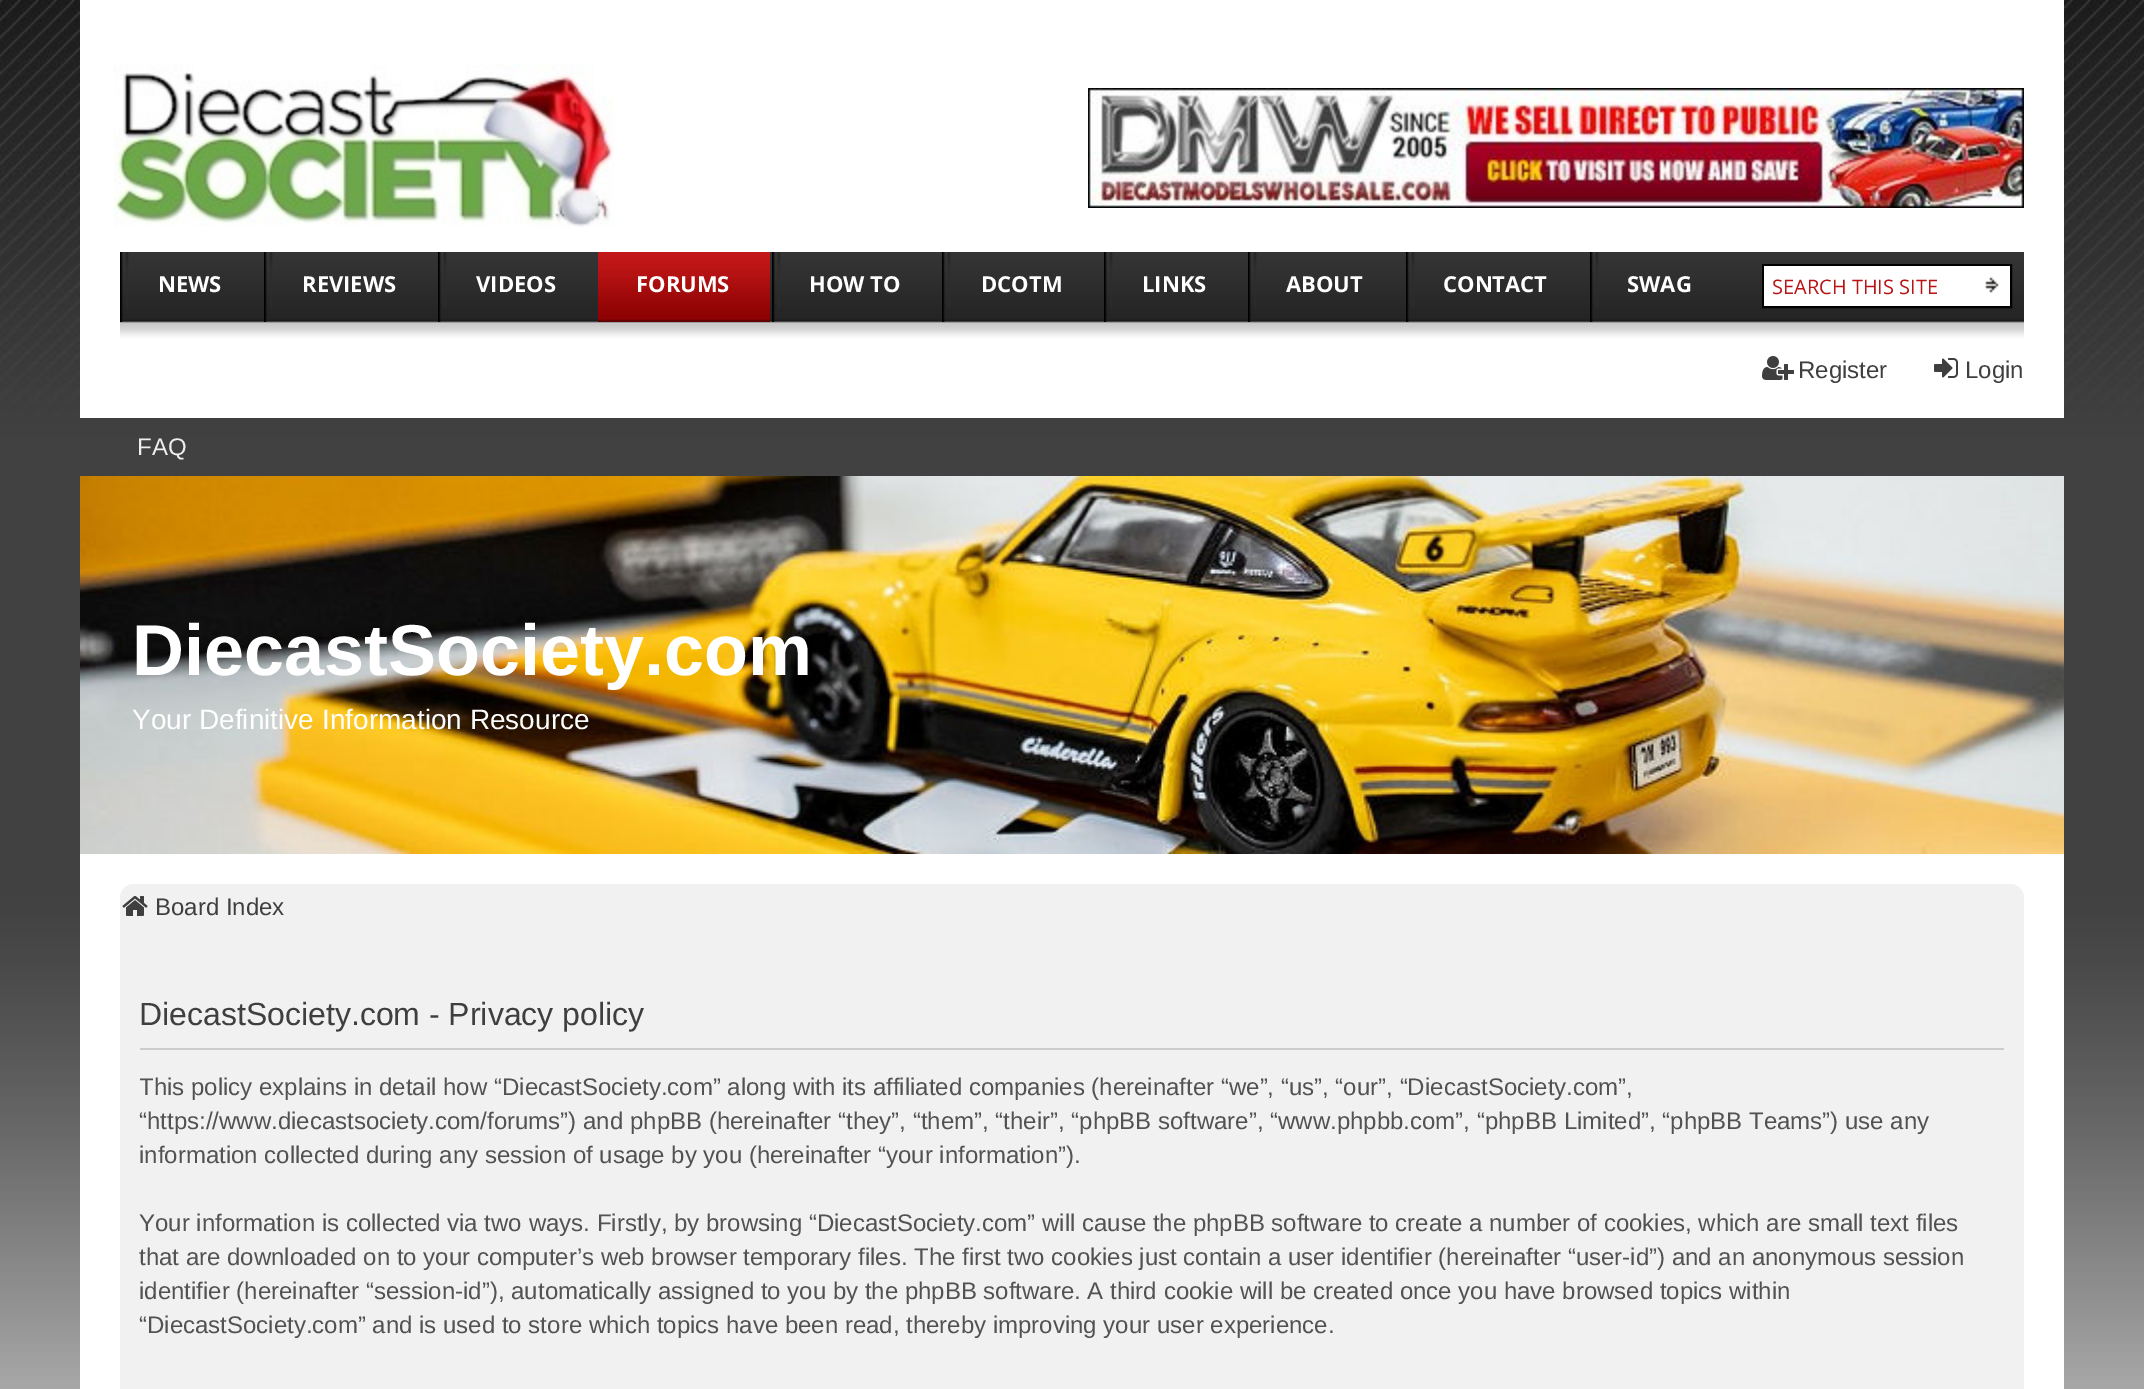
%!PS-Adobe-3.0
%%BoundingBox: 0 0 2144 1389
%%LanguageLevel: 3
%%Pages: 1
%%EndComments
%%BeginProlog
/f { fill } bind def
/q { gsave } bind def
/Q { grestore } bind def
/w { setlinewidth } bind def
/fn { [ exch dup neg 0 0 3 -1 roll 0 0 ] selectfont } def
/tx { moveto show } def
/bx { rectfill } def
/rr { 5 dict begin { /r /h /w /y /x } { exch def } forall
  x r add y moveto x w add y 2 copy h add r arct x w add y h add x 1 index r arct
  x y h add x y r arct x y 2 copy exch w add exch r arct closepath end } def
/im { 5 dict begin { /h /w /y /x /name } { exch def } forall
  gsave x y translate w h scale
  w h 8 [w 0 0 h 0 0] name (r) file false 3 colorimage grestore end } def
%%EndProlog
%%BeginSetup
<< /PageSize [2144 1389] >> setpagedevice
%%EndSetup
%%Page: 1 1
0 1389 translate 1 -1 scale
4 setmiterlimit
1 setgray
0 0 2144 1389 bx
(image0.raw) 0 0 2144 1389 im
80 0 1984 418 bx
(image1.raw) 120 252 1904 86 im
(image2.raw) 114 64 500 163 im
(image3.raw) 1088 88 936 120 im
(image4.raw) 120 252 9 70 im
/OpenSans-Bold 22 fn
(NEWS) 158 292 tx
(image4.raw) 264 252 9 70 im
(REVIEWS) 302 292 tx
(image4.raw) 438 252 9 70 im
(VIDEOS) 476 292 tx
(image5.raw) 598 252 172 70 im
(FORUMS) 636 292 tx
(image4.raw) 772 252 9 70 im
(HOW TO) 809 292 tx
(image4.raw) 942 252 9 70 im
(DCOTM) 981 292 tx
(image4.raw) 1104 252 9 70 im
(LINKS) 1142 292 tx
(image4.raw) 1248 252 9 70 im
(ABOUT) 1286 292 tx
(image4.raw) 1406 252 9 70 im
(CONTACT) 1443 292 tx
(image4.raw) 1590 252 9 70 im
(SWAG) 1627 292 tx
0 setgray
2 w
1763 265 248 42 rectstroke
1 setgray
1764 266 210 40 bx
/OpenSans-Regular 20 fn
0.725 0.078 0.082 setrgbcolor
(SEARCH THIS SITE) 1772 294 tx
(image6.raw) 1974 266 36 40 im
(image7.raw) 1762 356 32 24 im
/LiberationSans-Regular 24 fn
0.247 setgray
(Register) 1798 378 tx
(image8.raw) 1934 358 24 20 im
(Login) 1965 378 tx
0.933 setgray
(FAQ) 137 455 tx
(image9.raw) 80 476 1984 378 im
/LiberationSans-Bold 72 fn
1 setgray
(DiecastSociety.com) 132 675 tx
/LiberationSans-Regular 28 fn
(Your Definitive Information Resource) 132 729 tx
80 854 1984 535 bx
0.945 setgray
120 884 1904 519 14 rr f
(image10.raw) 122 896 26 20 im
/LiberationSans-Regular 24 fn
0.247 setgray
(Board Index) 155 915 tx
0.8 setgray
140 1048 1864 2 bx
/LiberationSans-Regular 32 fn
0.247 setgray
(DiecastSociety.com - Privacy policy) 139 1025 tx
q
140 984 1864 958 rectclip
/LiberationSans-Regular 24 fn
0.322 setgray
(This policy explains in detail how “DiecastSociety.com” along with its affiliated companies \(hereinafter “we”, “us”, “our”, “DiecastSociety.com”,) 139 1095 tx
Q
/LiberationSans-Regular 24 fn
0.322 setgray
(“https://www.diecastsociety.com/forums”\) and phpBB \(hereinafter “they”, “them”, “their”, “phpBB software”, “www.phpbb.com”, “phpBB Limited”, “phpBB Teams”\) use any) 139 1129 tx
(information collected during any session of usage by you \(hereinafter “your information”\).) 139 1163 tx
(Your information is collected via two ways. Firstly, by browsing “DiecastSociety.com” will cause the phpBB software to create a number of cookies, which are small text files) 139 1231 tx
(that are downloaded on to your computer’s web browser temporary files. The first two cookies just contain a user identifier \(hereinafter “user-id”\) and an anonymous session) 139 1265 tx
(identifier \(hereinafter “session-id”\), automatically assigned to you by the phpBB software. A third cookie will be created once you have browsed topics within) 139 1299 tx
(“DiecastSociety.com” and is used to store which topics have been read, thereby improving your user experience.) 139 1333 tx
showpage
%%EOF
